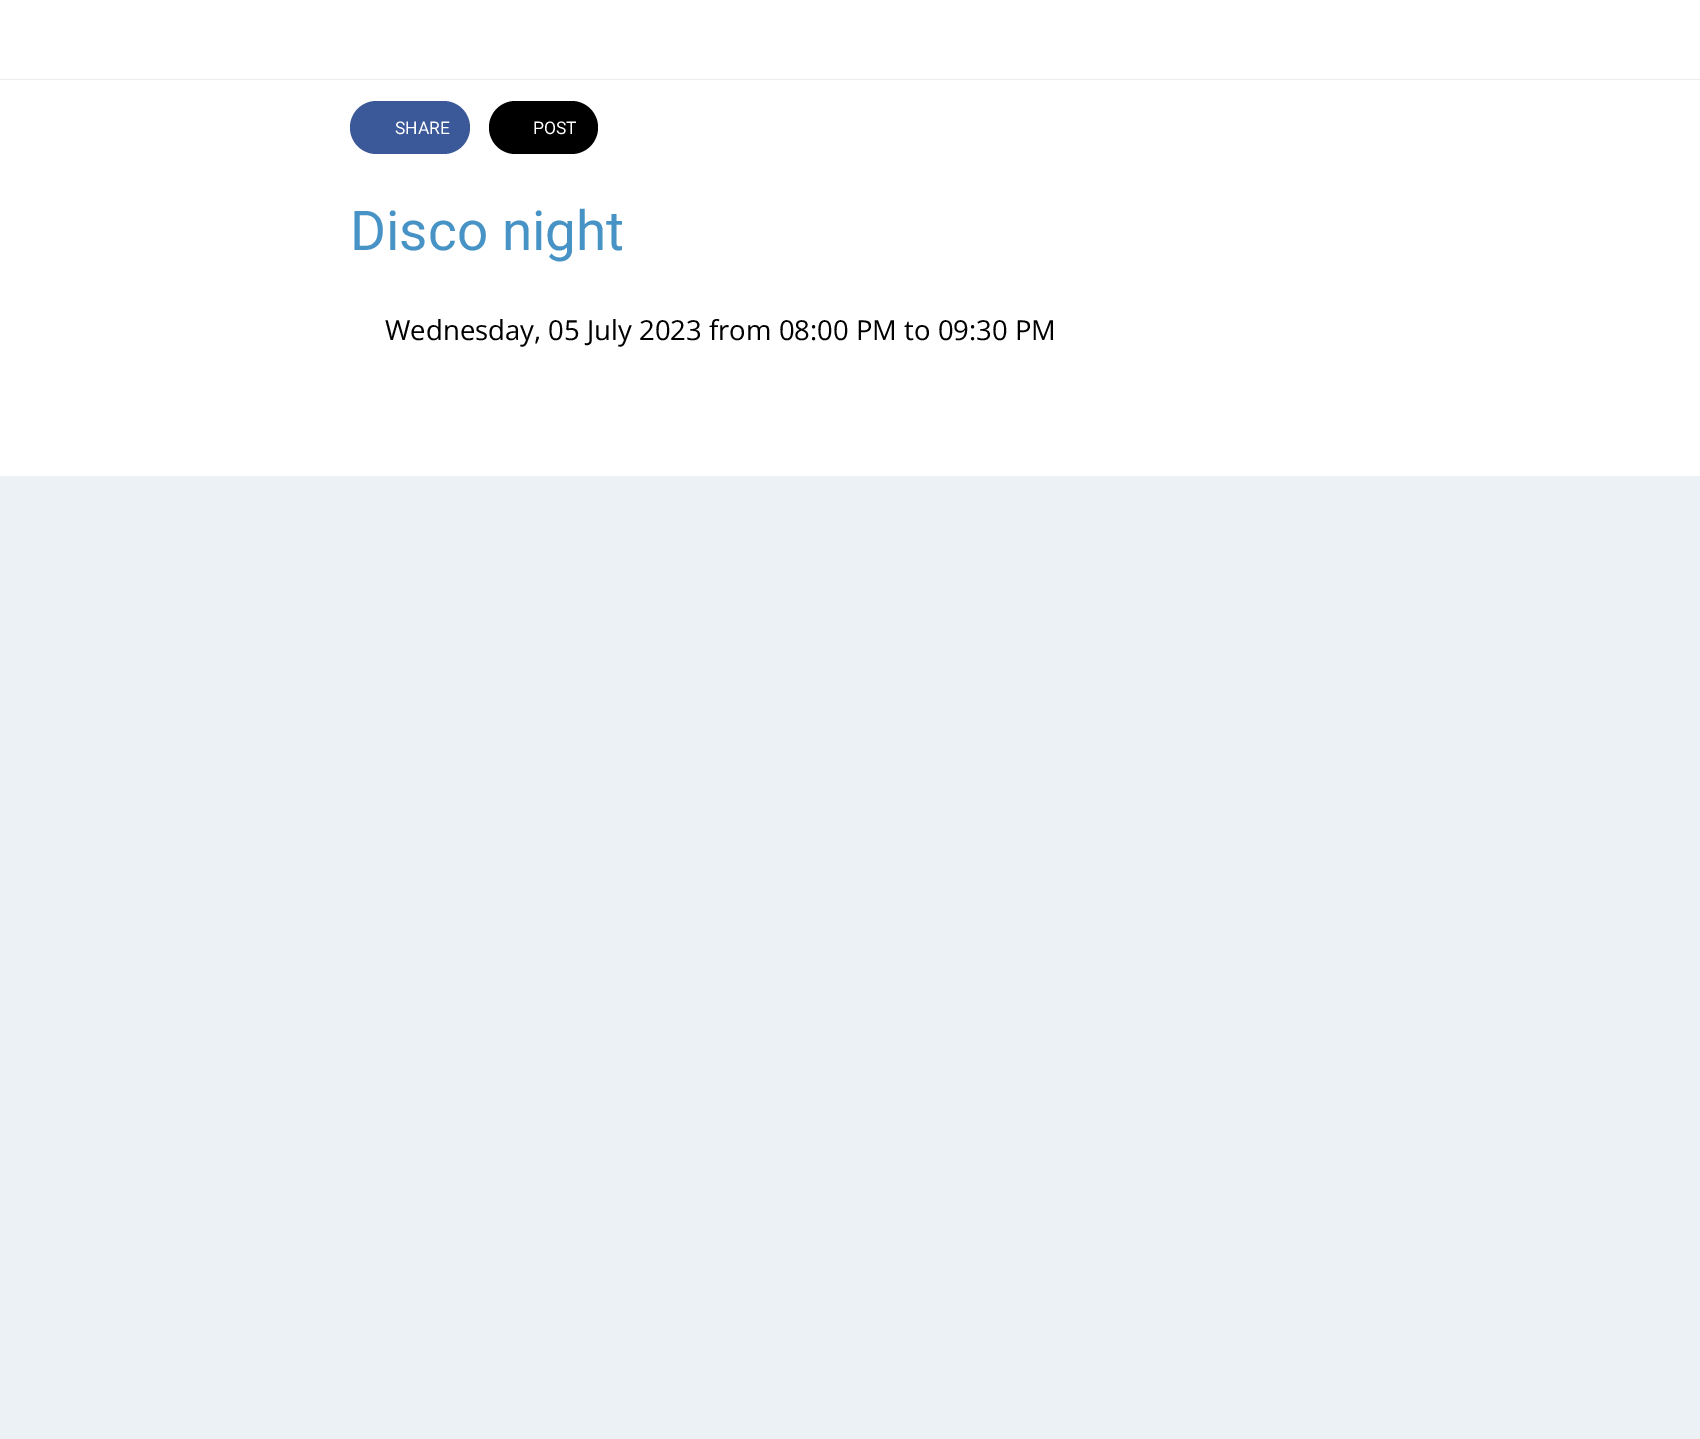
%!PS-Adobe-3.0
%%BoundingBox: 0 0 1700 1439
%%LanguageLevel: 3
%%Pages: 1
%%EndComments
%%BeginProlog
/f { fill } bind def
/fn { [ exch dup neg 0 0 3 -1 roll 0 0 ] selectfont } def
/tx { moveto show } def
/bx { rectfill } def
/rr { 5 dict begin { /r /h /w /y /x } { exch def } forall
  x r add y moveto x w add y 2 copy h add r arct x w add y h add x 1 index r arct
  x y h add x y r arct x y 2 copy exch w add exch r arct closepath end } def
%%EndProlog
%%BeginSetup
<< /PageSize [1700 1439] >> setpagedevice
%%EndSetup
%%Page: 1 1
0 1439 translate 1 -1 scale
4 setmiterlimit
0.922 0.945 0.961 setrgbcolor
0 0 1700 1439 bx
1 setgray
0 0 1700 79 bx
0.929 setgray
0 79 1700 1 bx
1 setgray
0 80 1700 396 bx
0.231 0.349 0.6 setrgbcolor
350 101 120 53 26.5 rr f
/Roboto-Regular 17.5 fn
1 setgray
(SHARE) 395 134 tx
0 setgray
489 101 109 53 26.5 rr f
1 setgray
(POST) 533 134 tx
/Roboto-Regular 55 fn
0.278 0.576 0.773 setrgbcolor
(Disco night) 350 250 tx
/OpenSans-Regular 27.5 fn
0 setgray
(Wednesday, 05 July 2023 from 08:00 PM to 09:30 PM) 385 340 tx
showpage
%%EOF
